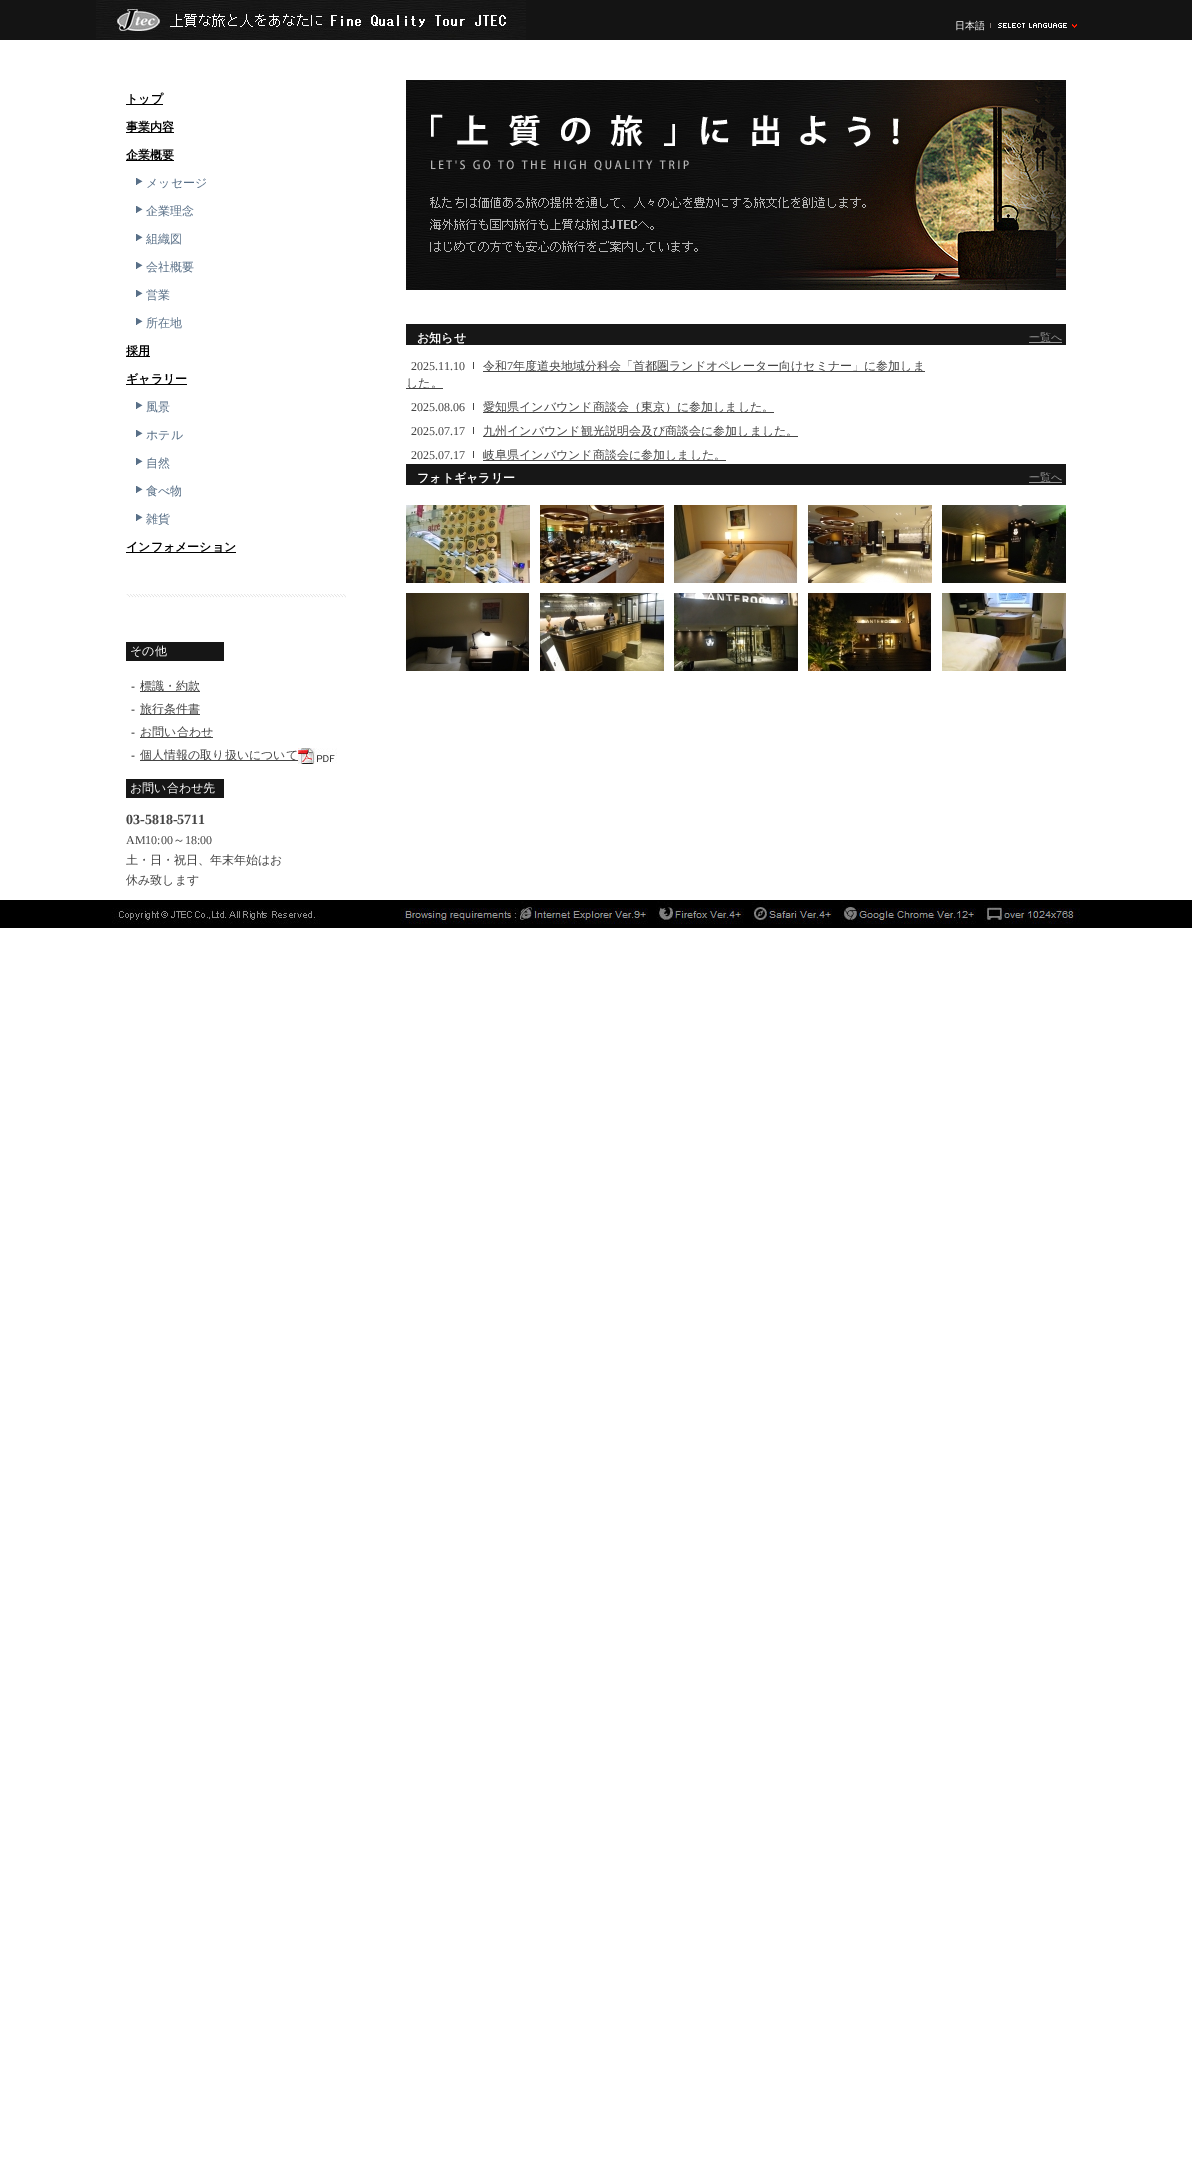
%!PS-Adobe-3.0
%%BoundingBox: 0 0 1192 2160
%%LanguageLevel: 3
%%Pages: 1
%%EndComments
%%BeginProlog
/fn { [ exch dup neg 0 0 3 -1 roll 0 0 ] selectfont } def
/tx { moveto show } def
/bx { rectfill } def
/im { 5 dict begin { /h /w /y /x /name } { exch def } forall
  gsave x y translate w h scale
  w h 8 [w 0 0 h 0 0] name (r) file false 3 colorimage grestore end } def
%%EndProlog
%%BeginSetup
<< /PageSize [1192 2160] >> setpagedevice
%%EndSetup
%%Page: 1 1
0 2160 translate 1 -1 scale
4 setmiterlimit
1 setgray
0 0 1192 2160 bx
0.078 setgray
0 0 1192 40 bx
(image0.raw) 96 0 430 40 im
/WenQuanYiZenHei-Medium 10 fn
1 setgray
(日本語) 955 29 tx
(image1.raw) 990 23 87 5 im
0 setgray
126 104 37 1 bx
/WenQuanYiZenHei-Bold 12 fn
(トップ) 126 103 tx
126 132 48 1 bx
(事業内容) 126 131 tx
126 160 48 1 bx
(企業概要) 126 159 tx
(image2.raw) 136 178 7 7 im
/WenQuanYiZenHei-Medium 12 fn
0.345 0.435 0.529 setrgbcolor
(メッセージ) 146 187 tx
(image2.raw) 136 206 7 7 im
(企業理念) 146 215 tx
(image2.raw) 136 234 7 7 im
(組織図) 146 243 tx
(image2.raw) 136 262 7 7 im
(会社概要) 146 271 tx
(image2.raw) 136 290 7 7 im
(営業) 146 299 tx
(image2.raw) 136 318 7 7 im
(所在地) 146 327 tx
0 setgray
126 356 24 1 bx
/WenQuanYiZenHei-Bold 12 fn
(採用) 126 355 tx
126 384 61 1 bx
(ギャラリー) 126 383 tx
(image2.raw) 136 402 7 7 im
/WenQuanYiZenHei-Medium 12 fn
0.345 0.435 0.529 setrgbcolor
(風景) 146 411 tx
(image2.raw) 136 430 7 7 im
(ホテル) 146 439 tx
(image2.raw) 136 458 7 7 im
(自然) 146 467 tx
(image2.raw) 136 486 7 7 im
(食べ物) 146 495 tx
(image2.raw) 136 514 7 7 im
(雑貨) 146 523 tx
0 setgray
126 552 110 1 bx
/WenQuanYiZenHei-Bold 12 fn
(インフォメーション) 126 551 tx
(image3.raw) 126 594 220 4 im
0.086 setgray
126 642 98 19 bx
/WenQuanYiZenHei-Medium 12 fn
1 setgray
(その他) 130 655 tx
/LiberationSerif-Regular 12 fn
0 setgray
(-) 131 690 tx
0.267 setgray
140 691 60 1 bx
/WenQuanYiZenHei-Medium 12 fn
(標識・約款) 140 690 tx
/LiberationSerif-Regular 12 fn
0 setgray
(-) 131 713 tx
0.267 setgray
140 714 60 1 bx
/WenQuanYiZenHei-Medium 12 fn
(旅行条件書) 140 713 tx
/LiberationSerif-Regular 12 fn
0 setgray
(-) 131 736 tx
0.267 setgray
140 737 73 1 bx
/WenQuanYiZenHei-Medium 12 fn
(お問い合わせ) 140 736 tx
/LiberationSerif-Regular 12 fn
0 setgray
(-) 131 759 tx
0.267 setgray
140 760 158 1 bx
/WenQuanYiZenHei-Medium 12 fn
(個人情報の取り扱いについて) 140 759 tx
(image4.raw) 298 748 39 16 im
0.086 setgray
126 779 98 19 bx
1 setgray
(お問い合わせ先) 130 792 tx
/LiberationSerif-Bold 14 fn
0.267 setgray
(03-5818-5711) 126 824 tx
/LiberationSerif-Regular 12 fn
(AM10:00) 126 844 tx
/WenQuanYiZenHei-Medium 12 fn
(～) 173 844 tx
/LiberationSerif-Regular 12 fn
(18:00) 185 844 tx
/WenQuanYiZenHei-Medium 12 fn
(土・日・祝日、年末年始はお) 126 864 tx
(休み致します) 126 884 tx
(image5.raw) 406 80 660 210 im
0.09 setgray
406 324 660 21 bx
/WenQuanYiZenHei-Bold 12 fn
1 setgray
(お知らせ) 417 342 tx
0.6 setgray
1029 342 33 1 bx
/WenQuanYiZenHei-Medium 11 fn
(一覧へ) 1029 341 tx
/LiberationSerif-Regular 12 fn
0.267 setgray
(2025.11.10) 411 370 tx
(image6.raw) 473 362 1 7 im
483 371 442 1 bx
/WenQuanYiZenHei-Medium 12 fn
(令和) 483 370 tx
/LiberationSerif-Regular 12 fn
(7) 507 370 tx
/WenQuanYiZenHei-Medium 12 fn
(年度道央地域分科会「首都圏ランドオペレーター向けセミナー」に参加しま) 513 370 tx
406 388 37 1 bx
(した。) 406 387 tx
/LiberationSerif-Regular 12 fn
(2025.08.06) 411 411 tx
(image6.raw) 473 403 1 7 im
483 412 291 1 bx
/WenQuanYiZenHei-Medium 12 fn
(愛知県インバウンド商談会（東京）に参加しました。) 483 411 tx
/LiberationSerif-Regular 12 fn
(2025.07.17) 411 435 tx
(image6.raw) 473 427 1 7 im
483 436 315 1 bx
/WenQuanYiZenHei-Medium 12 fn
(九州インバウンド観光説明会及び商談会に参加しました。) 483 435 tx
/LiberationSerif-Regular 12 fn
(2025.07.17) 411 459 tx
(image6.raw) 473 451 1 7 im
483 460 243 1 bx
/WenQuanYiZenHei-Medium 12 fn
(岐阜県インバウンド商談会に参加しました。) 483 459 tx
0.09 setgray
406 464 660 21 bx
/WenQuanYiZenHei-Bold 12 fn
1 setgray
(フォトギャラリー) 417 482 tx
0.6 setgray
1029 482 33 1 bx
/WenQuanYiZenHei-Medium 11 fn
(一覧へ) 1029 481 tx
(image7.raw) 406 505 124 78 im
(image8.raw) 540 505 124 78 im
(image9.raw) 674 505 124 78 im
(image10.raw) 808 505 124 78 im
(image11.raw) 942 505 124 78 im
(image12.raw) 406 593 124 78 im
(image13.raw) 540 593 124 78 im
(image14.raw) 674 593 124 78 im
(image15.raw) 808 593 124 78 im
(image16.raw) 942 593 124 78 im
0 setgray
0 900 1192 28 bx
(image17.raw) 112 901 968 23 im
showpage
%%EOF
